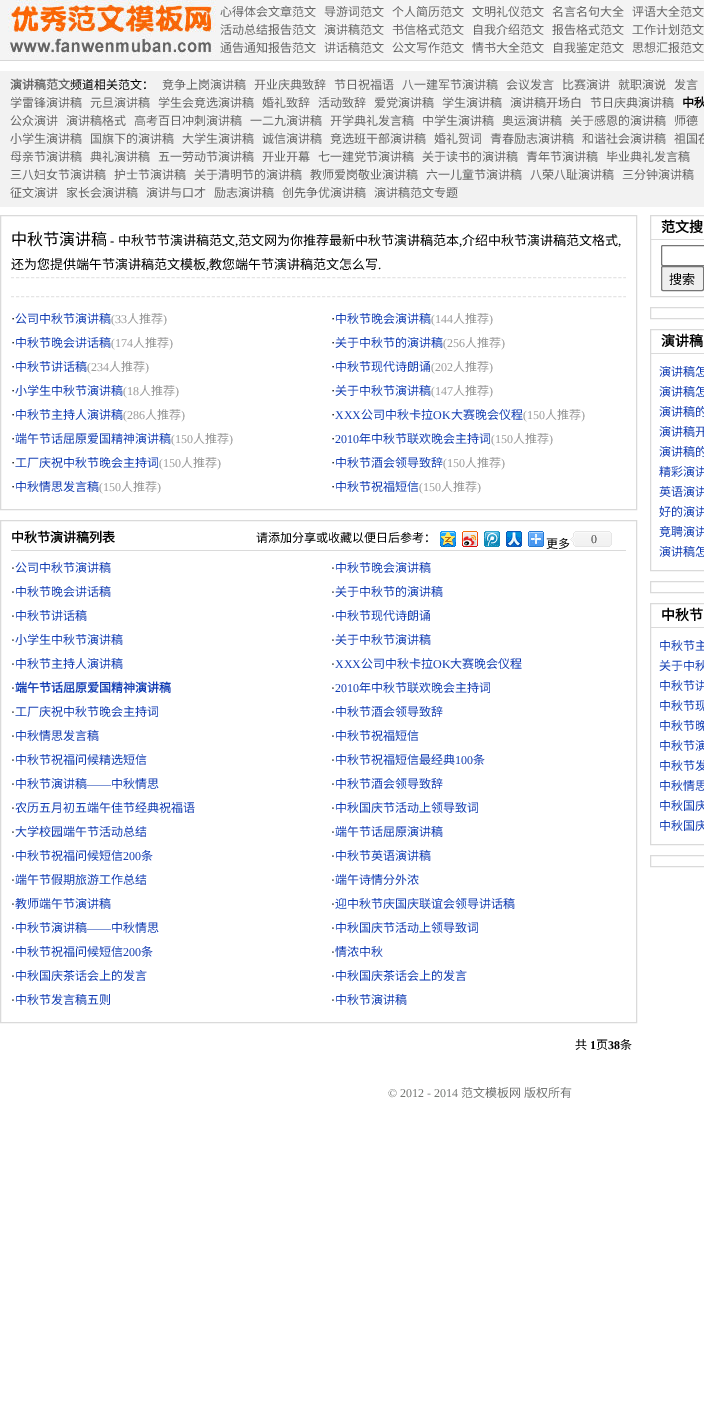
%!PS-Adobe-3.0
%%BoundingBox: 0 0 704 1420
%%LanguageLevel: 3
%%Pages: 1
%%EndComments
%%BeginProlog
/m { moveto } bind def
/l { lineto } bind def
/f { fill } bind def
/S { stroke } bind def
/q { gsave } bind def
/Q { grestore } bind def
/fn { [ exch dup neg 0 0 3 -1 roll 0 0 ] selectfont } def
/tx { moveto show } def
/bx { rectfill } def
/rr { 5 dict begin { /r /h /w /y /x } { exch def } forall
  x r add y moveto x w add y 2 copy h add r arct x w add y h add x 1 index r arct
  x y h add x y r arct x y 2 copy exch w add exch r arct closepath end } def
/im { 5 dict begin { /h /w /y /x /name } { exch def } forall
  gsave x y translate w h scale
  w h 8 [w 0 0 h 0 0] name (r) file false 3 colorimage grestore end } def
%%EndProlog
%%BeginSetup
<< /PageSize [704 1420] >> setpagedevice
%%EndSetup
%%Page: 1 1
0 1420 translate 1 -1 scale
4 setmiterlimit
1 setgray
0 0 704 1420 bx
0.957 setgray
0 0 704 60 bx
0.843 setgray
0 60 704 1 bx
(image0.raw) 8 0 208 56 im
/NotoSansCJKSC-Regular 12 fn
0.4 setgray
(心得体会文章范文) 220 16 tx
(导游词范文) 324 16 tx
(个人简历范文) 392 16 tx
(文明礼仪范文) 472 16 tx
(名言名句大全) 552 16 tx
(评语大全范文) 632 16 tx
(活动总结报告范文) 220 34 tx
(演讲稿范文) 324 34 tx
(书信格式范文) 392 34 tx
(自我介绍范文) 472 34 tx
(报告格式范文) 552 34 tx
(工作计划范文) 632 34 tx
(通告通知报告范文) 220 52 tx
(讲话稿范文) 324 52 tx
(公文写作范文) 392 52 tx
(情书大全范文) 472 52 tx
(自我鉴定范文) 552 52 tx
(思想汇报范文) 632 52 tx
0.949 setgray
0 71 704 136 bx
/NotoSansCJKSC-Bold 12 fn
0.4 setgray
(演讲稿范文) 10 89 tx
/NotoSansCJKSC-Regular 12 fn
0 setgray
(频道相关范文：) 70 89 tx
0.4 setgray
(竞争上岗演讲稿) 162 89 tx
(开业庆典致辞) 254 89 tx
(节日祝福语) 334 89 tx
(八一建军节演讲稿) 402 89 tx
(会议发言) 506 89 tx
(比赛演讲) 562 89 tx
(就职演说) 618 89 tx
(发言) 674 89 tx
(学雷锋演讲稿) 10 107 tx
(元旦演讲稿) 90 107 tx
(学生会竞选演讲稿) 158 107 tx
(婚礼致辞) 262 107 tx
(活动致辞) 318 107 tx
(爱党演讲稿) 374 107 tx
(学生演讲稿) 442 107 tx
(演讲稿开场白) 510 107 tx
(节日庆典演讲稿) 590 107 tx
/NotoSansCJKSC-Bold 12 fn
0 setgray
(中秋) 682 107 tx
/NotoSansCJKSC-Regular 12 fn
0.4 setgray
(公众演讲) 10 125 tx
(演讲稿格式) 66 125 tx
(高考百日冲刺演讲稿) 134 125 tx
(一二九演讲稿) 250 125 tx
(开学典礼发言稿) 330 125 tx
(中学生演讲稿) 422 125 tx
(奥运演讲稿) 502 125 tx
(关于感恩的演讲稿) 570 125 tx
(师德) 674 125 tx
(小学生演讲稿) 10 143 tx
(国旗下的演讲稿) 90 143 tx
(大学生演讲稿) 182 143 tx
(诚信演讲稿) 262 143 tx
(竞选班干部演讲稿) 330 143 tx
(婚礼贺词) 434 143 tx
(青春励志演讲稿) 490 143 tx
(和谐社会演讲稿) 582 143 tx
(祖国在) 674 143 tx
(母亲节演讲稿) 10 161 tx
(典礼演讲稿) 90 161 tx
(五一劳动节演讲稿) 158 161 tx
(开业开幕) 262 161 tx
(七一建党节演讲稿) 318 161 tx
(关于读书的演讲稿) 422 161 tx
(青年节演讲稿) 526 161 tx
(毕业典礼发言稿) 606 161 tx
(三八妇女节演讲稿) 10 179 tx
(护士节演讲稿) 114 179 tx
(关于清明节的演讲稿) 194 179 tx
(教师爱岗敬业演讲稿) 310 179 tx
(六一儿童节演讲稿) 426 179 tx
(八荣八耻演讲稿) 530 179 tx
(三分钟演讲稿) 622 179 tx
(征文演讲) 10 197 tx
(家长会演讲稿) 66 197 tx
(演讲与口才) 146 197 tx
(励志演讲稿) 214 197 tx
(创先争优演讲稿) 282 197 tx
(演讲稿范文专题) 374 197 tx
0.855 setgray
0.5 215.5 636 294 rectstroke
/NotoSansCJKSC-Regular 16 fn
0 setgray
(中秋节演讲稿) 11 245 tx
/LiberationSerif-Regular 13 fn
(-) 110 245 tx
/NotoSansCJKSC-Regular 13 fn
(中秋节节演讲稿范文) 118 245 tx
(范文网为你推荐最新中秋节演讲稿范本) 238 245 tx
(介绍中秋节演讲稿范文格式) 462 245 tx
/LiberationSerif-Regular 13 fn
(,) 235 245 tx
(,) 459 245 tx
(,) 618 245 tx
/NotoSansCJKSC-Regular 13 fn
(还为您提供端午节演讲稿范文模板) 11 269 tx
/LiberationSerif-Regular 13 fn
(,) 206 269 tx
/NotoSansCJKSC-Regular 13 fn
(教您端午节演讲稿范文怎么写) 209 269 tx
/LiberationSerif-Regular 13 fn
(.) 378 269 tx
0.898 setgray
[3 2.02] 0 setdash
11 277.5 m 626 277.5 l S
11 296.5 m 626 296.5 l S
0 setgray
(·) 11 323 tx
/NotoSansCJKSC-Regular 12 fn
0.071 0.239 0.706 setrgbcolor
(公司中秋节演讲稿) 15 323 tx
/LiberationSerif-Regular 12 fn
0.6 setgray
(\(33) 111 323 tx
/NotoSansCJKSC-Regular 12 fn
(人推荐) 127 323 tx
/LiberationSerif-Regular 12 fn
(\)) 163 323 tx
/LiberationSerif-Regular 13 fn
0 setgray
(·) 331 323 tx
/NotoSansCJKSC-Regular 12 fn
0.071 0.239 0.706 setrgbcolor
(中秋节晚会演讲稿) 335 323 tx
/LiberationSerif-Regular 12 fn
0.6 setgray
(\(144) 431 323 tx
/NotoSansCJKSC-Regular 12 fn
(人推荐) 453 323 tx
/LiberationSerif-Regular 12 fn
(\)) 489 323 tx
/LiberationSerif-Regular 13 fn
0 setgray
(·) 11 347 tx
/NotoSansCJKSC-Regular 12 fn
0.071 0.239 0.706 setrgbcolor
(中秋节晚会讲话稿) 15 347 tx
/LiberationSerif-Regular 12 fn
0.6 setgray
(\(174) 111 347 tx
/NotoSansCJKSC-Regular 12 fn
(人推荐) 133 347 tx
/LiberationSerif-Regular 12 fn
(\)) 169 347 tx
/LiberationSerif-Regular 13 fn
0 setgray
(·) 331 347 tx
/NotoSansCJKSC-Regular 12 fn
0.071 0.239 0.706 setrgbcolor
(关于中秋节的演讲稿) 335 347 tx
/LiberationSerif-Regular 12 fn
0.6 setgray
(\(256) 443 347 tx
/NotoSansCJKSC-Regular 12 fn
(人推荐) 465 347 tx
/LiberationSerif-Regular 12 fn
(\)) 501 347 tx
/LiberationSerif-Regular 13 fn
0 setgray
(·) 11 371 tx
/NotoSansCJKSC-Regular 12 fn
0.071 0.239 0.706 setrgbcolor
(中秋节讲话稿) 15 371 tx
/LiberationSerif-Regular 12 fn
0.6 setgray
(\(234) 87 371 tx
/NotoSansCJKSC-Regular 12 fn
(人推荐) 109 371 tx
/LiberationSerif-Regular 12 fn
(\)) 145 371 tx
/LiberationSerif-Regular 13 fn
0 setgray
(·) 331 371 tx
/NotoSansCJKSC-Regular 12 fn
0.071 0.239 0.706 setrgbcolor
(中秋节现代诗朗诵) 335 371 tx
/LiberationSerif-Regular 12 fn
0.6 setgray
(\(202) 431 371 tx
/NotoSansCJKSC-Regular 12 fn
(人推荐) 453 371 tx
/LiberationSerif-Regular 12 fn
(\)) 489 371 tx
/LiberationSerif-Regular 13 fn
0 setgray
(·) 11 395 tx
/NotoSansCJKSC-Regular 12 fn
0.071 0.239 0.706 setrgbcolor
(小学生中秋节演讲稿) 15 395 tx
/LiberationSerif-Regular 12 fn
0.6 setgray
(\(18) 123 395 tx
/NotoSansCJKSC-Regular 12 fn
(人推荐) 139 395 tx
/LiberationSerif-Regular 12 fn
(\)) 175 395 tx
/LiberationSerif-Regular 13 fn
0 setgray
(·) 331 395 tx
/NotoSansCJKSC-Regular 12 fn
0.071 0.239 0.706 setrgbcolor
(关于中秋节演讲稿) 335 395 tx
/LiberationSerif-Regular 12 fn
0.6 setgray
(\(147) 431 395 tx
/NotoSansCJKSC-Regular 12 fn
(人推荐) 453 395 tx
/LiberationSerif-Regular 12 fn
(\)) 489 395 tx
/LiberationSerif-Regular 13 fn
0 setgray
(·) 11 419 tx
/NotoSansCJKSC-Regular 12 fn
0.071 0.239 0.706 setrgbcolor
(中秋节主持人演讲稿) 15 419 tx
/LiberationSerif-Regular 12 fn
0.6 setgray
(\(286) 123 419 tx
/NotoSansCJKSC-Regular 12 fn
(人推荐) 145 419 tx
/LiberationSerif-Regular 12 fn
(\)) 181 419 tx
/LiberationSerif-Regular 13 fn
0 setgray
(·) 331 419 tx
/LiberationSerif-Regular 12 fn
0.071 0.239 0.706 setrgbcolor
(XXX) 335 419 tx
/NotoSansCJKSC-Regular 12 fn
(公司中秋卡拉) 361 419 tx
/LiberationSerif-Regular 12 fn
(OK) 433 419 tx
/NotoSansCJKSC-Regular 12 fn
(大赛晚会仪程) 451 419 tx
/LiberationSerif-Regular 12 fn
0.6 setgray
(\(150) 523 419 tx
/NotoSansCJKSC-Regular 12 fn
(人推荐) 545 419 tx
/LiberationSerif-Regular 12 fn
(\)) 581 419 tx
/LiberationSerif-Regular 13 fn
0 setgray
(·) 11 443 tx
/NotoSansCJKSC-Regular 12 fn
0.071 0.239 0.706 setrgbcolor
(端午节话屈原爱国精神演讲稿) 15 443 tx
/LiberationSerif-Regular 12 fn
0.6 setgray
(\(150) 171 443 tx
/NotoSansCJKSC-Regular 12 fn
(人推荐) 193 443 tx
/LiberationSerif-Regular 12 fn
(\)) 229 443 tx
/LiberationSerif-Regular 13 fn
0 setgray
(·) 331 443 tx
/LiberationSerif-Regular 12 fn
0.071 0.239 0.706 setrgbcolor
(2010) 335 443 tx
/NotoSansCJKSC-Regular 12 fn
(年中秋节联欢晚会主持词) 359 443 tx
/LiberationSerif-Regular 12 fn
0.6 setgray
(\(150) 491 443 tx
/NotoSansCJKSC-Regular 12 fn
(人推荐) 513 443 tx
/LiberationSerif-Regular 12 fn
(\)) 549 443 tx
/LiberationSerif-Regular 13 fn
0 setgray
(·) 11 467 tx
/NotoSansCJKSC-Regular 12 fn
0.071 0.239 0.706 setrgbcolor
(工厂庆祝中秋节晚会主持词) 15 467 tx
/LiberationSerif-Regular 12 fn
0.6 setgray
(\(150) 159 467 tx
/NotoSansCJKSC-Regular 12 fn
(人推荐) 181 467 tx
/LiberationSerif-Regular 12 fn
(\)) 217 467 tx
/LiberationSerif-Regular 13 fn
0 setgray
(·) 331 467 tx
/NotoSansCJKSC-Regular 12 fn
0.071 0.239 0.706 setrgbcolor
(中秋节酒会领导致辞) 335 467 tx
/LiberationSerif-Regular 12 fn
0.6 setgray
(\(150) 443 467 tx
/NotoSansCJKSC-Regular 12 fn
(人推荐) 465 467 tx
/LiberationSerif-Regular 12 fn
(\)) 501 467 tx
/LiberationSerif-Regular 13 fn
0 setgray
(·) 11 491 tx
/NotoSansCJKSC-Regular 12 fn
0.071 0.239 0.706 setrgbcolor
(中秋情思发言稿) 15 491 tx
/LiberationSerif-Regular 12 fn
0.6 setgray
(\(150) 99 491 tx
/NotoSansCJKSC-Regular 12 fn
(人推荐) 121 491 tx
/LiberationSerif-Regular 12 fn
(\)) 157 491 tx
/LiberationSerif-Regular 13 fn
0 setgray
(·) 331 491 tx
/NotoSansCJKSC-Regular 12 fn
0.071 0.239 0.706 setrgbcolor
(中秋节祝福短信) 335 491 tx
/LiberationSerif-Regular 12 fn
0.6 setgray
(\(150) 419 491 tx
/NotoSansCJKSC-Regular 12 fn
(人推荐) 441 491 tx
/LiberationSerif-Regular 12 fn
(\)) 477 491 tx
0.855 setgray
[] 0 setdash
0.5 520.5 636 502 rectstroke
11 550 615 1 bx
/NotoSansCJKSC-Bold 13 fn
0 setgray
(中秋节演讲稿列表) 11 542 tx
/NotoSansCJKSC-Regular 12 fn
(请添加分享或收藏以便日后参考：) 256 542 tx
(image1.raw) 440 531 16 16 im
(image2.raw) 462 531 16 16 im
(image3.raw) 484 531 16 16 im
(image4.raw) 506 531 16 16 im
(image5.raw) 528 531 16 16 im
(更多) 546 548 tx
(image6.raw) 570 531 42 16 im
/LiberationSerif-Regular 12 fn
0.271 setgray
(0) 591 543 tx
0 setgray
(·) 11 572 tx
/NotoSansCJKSC-Regular 12 fn
0.071 0.239 0.706 setrgbcolor
(公司中秋节演讲稿) 15 572 tx
/LiberationSerif-Regular 12 fn
0 setgray
(·) 331 572 tx
/NotoSansCJKSC-Regular 12 fn
0.071 0.239 0.706 setrgbcolor
(中秋节晚会演讲稿) 335 572 tx
/LiberationSerif-Regular 12 fn
0 setgray
(·) 11 596 tx
/NotoSansCJKSC-Regular 12 fn
0.071 0.239 0.706 setrgbcolor
(中秋节晚会讲话稿) 15 596 tx
/LiberationSerif-Regular 12 fn
0 setgray
(·) 331 596 tx
/NotoSansCJKSC-Regular 12 fn
0.071 0.239 0.706 setrgbcolor
(关于中秋节的演讲稿) 335 596 tx
/LiberationSerif-Regular 12 fn
0 setgray
(·) 11 620 tx
/NotoSansCJKSC-Regular 12 fn
0.071 0.239 0.706 setrgbcolor
(中秋节讲话稿) 15 620 tx
/LiberationSerif-Regular 12 fn
0 setgray
(·) 331 620 tx
/NotoSansCJKSC-Regular 12 fn
0.071 0.239 0.706 setrgbcolor
(中秋节现代诗朗诵) 335 620 tx
/LiberationSerif-Regular 12 fn
0 setgray
(·) 11 644 tx
/NotoSansCJKSC-Regular 12 fn
0.071 0.239 0.706 setrgbcolor
(小学生中秋节演讲稿) 15 644 tx
/LiberationSerif-Regular 12 fn
0 setgray
(·) 331 644 tx
/NotoSansCJKSC-Regular 12 fn
0.071 0.239 0.706 setrgbcolor
(关于中秋节演讲稿) 335 644 tx
/LiberationSerif-Regular 12 fn
0 setgray
(·) 11 668 tx
/NotoSansCJKSC-Regular 12 fn
0.071 0.239 0.706 setrgbcolor
(中秋节主持人演讲稿) 15 668 tx
/LiberationSerif-Regular 12 fn
0 setgray
(·) 331 668 tx
0.071 0.239 0.706 setrgbcolor
(XXX) 335 668 tx
/NotoSansCJKSC-Regular 12 fn
(公司中秋卡拉) 361 668 tx
/LiberationSerif-Regular 12 fn
(OK) 433 668 tx
/NotoSansCJKSC-Regular 12 fn
(大赛晚会仪程) 450 668 tx
/LiberationSerif-Regular 12 fn
0 setgray
(·) 11 692 tx
/NotoSansCJKSC-Bold 12 fn
0.071 0.239 0.706 setrgbcolor
(端午节话屈原爱国精神演讲稿) 15 692 tx
/LiberationSerif-Regular 12 fn
0 setgray
(·) 331 692 tx
0.071 0.239 0.706 setrgbcolor
(2010) 335 692 tx
/NotoSansCJKSC-Regular 12 fn
(年中秋节联欢晚会主持词) 359 692 tx
/LiberationSerif-Regular 12 fn
0 setgray
(·) 11 716 tx
/NotoSansCJKSC-Regular 12 fn
0.071 0.239 0.706 setrgbcolor
(工厂庆祝中秋节晚会主持词) 15 716 tx
/LiberationSerif-Regular 12 fn
0 setgray
(·) 331 716 tx
/NotoSansCJKSC-Regular 12 fn
0.071 0.239 0.706 setrgbcolor
(中秋节酒会领导致辞) 335 716 tx
/LiberationSerif-Regular 12 fn
0 setgray
(·) 11 740 tx
/NotoSansCJKSC-Regular 12 fn
0.071 0.239 0.706 setrgbcolor
(中秋情思发言稿) 15 740 tx
/LiberationSerif-Regular 12 fn
0 setgray
(·) 331 740 tx
/NotoSansCJKSC-Regular 12 fn
0.071 0.239 0.706 setrgbcolor
(中秋节祝福短信) 335 740 tx
/LiberationSerif-Regular 12 fn
0 setgray
(·) 11 764 tx
/NotoSansCJKSC-Regular 12 fn
0.071 0.239 0.706 setrgbcolor
(中秋节祝福问候精选短信) 15 764 tx
/LiberationSerif-Regular 12 fn
0 setgray
(·) 331 764 tx
/NotoSansCJKSC-Regular 12 fn
0.071 0.239 0.706 setrgbcolor
(中秋节祝福短信最经典) 335 764 tx
/LiberationSerif-Regular 12 fn
(100) 455 764 tx
/NotoSansCJKSC-Regular 12 fn
(条) 473 764 tx
/LiberationSerif-Regular 12 fn
0 setgray
(·) 11 788 tx
/NotoSansCJKSC-Regular 12 fn
0.071 0.239 0.706 setrgbcolor
(中秋节演讲稿) 15 788 tx
/LiberationSerif-Regular 12 fn
(——) 87 788 tx
/NotoSansCJKSC-Regular 12 fn
(中秋情思) 111 788 tx
/LiberationSerif-Regular 12 fn
0 setgray
(·) 331 788 tx
/NotoSansCJKSC-Regular 12 fn
0.071 0.239 0.706 setrgbcolor
(中秋节酒会领导致辞) 335 788 tx
/LiberationSerif-Regular 12 fn
0 setgray
(·) 11 812 tx
/NotoSansCJKSC-Regular 12 fn
0.071 0.239 0.706 setrgbcolor
(农历五月初五端午佳节经典祝福语) 15 812 tx
/LiberationSerif-Regular 12 fn
0 setgray
(·) 331 812 tx
/NotoSansCJKSC-Regular 12 fn
0.071 0.239 0.706 setrgbcolor
(中秋国庆节活动上领导致词) 335 812 tx
/LiberationSerif-Regular 12 fn
0 setgray
(·) 11 836 tx
/NotoSansCJKSC-Regular 12 fn
0.071 0.239 0.706 setrgbcolor
(大学校园端午节活动总结) 15 836 tx
/LiberationSerif-Regular 12 fn
0 setgray
(·) 331 836 tx
/NotoSansCJKSC-Regular 12 fn
0.071 0.239 0.706 setrgbcolor
(端午节话屈原演讲稿) 335 836 tx
/LiberationSerif-Regular 12 fn
0 setgray
(·) 11 860 tx
/NotoSansCJKSC-Regular 12 fn
0.071 0.239 0.706 setrgbcolor
(中秋节祝福问候短信) 15 860 tx
/LiberationSerif-Regular 12 fn
(200) 123 860 tx
/NotoSansCJKSC-Regular 12 fn
(条) 141 860 tx
/LiberationSerif-Regular 12 fn
0 setgray
(·) 331 860 tx
/NotoSansCJKSC-Regular 12 fn
0.071 0.239 0.706 setrgbcolor
(中秋节英语演讲稿) 335 860 tx
/LiberationSerif-Regular 12 fn
0 setgray
(·) 11 884 tx
/NotoSansCJKSC-Regular 12 fn
0.071 0.239 0.706 setrgbcolor
(端午节假期旅游工作总结) 15 884 tx
/LiberationSerif-Regular 12 fn
0 setgray
(·) 331 884 tx
/NotoSansCJKSC-Regular 12 fn
0.071 0.239 0.706 setrgbcolor
(端午诗情分外浓) 335 884 tx
/LiberationSerif-Regular 12 fn
0 setgray
(·) 11 908 tx
/NotoSansCJKSC-Regular 12 fn
0.071 0.239 0.706 setrgbcolor
(教师端午节演讲稿) 15 908 tx
/LiberationSerif-Regular 12 fn
0 setgray
(·) 331 908 tx
/NotoSansCJKSC-Regular 12 fn
0.071 0.239 0.706 setrgbcolor
(迎中秋节庆国庆联谊会领导讲话稿) 335 908 tx
/LiberationSerif-Regular 12 fn
0 setgray
(·) 11 932 tx
/NotoSansCJKSC-Regular 12 fn
0.071 0.239 0.706 setrgbcolor
(中秋节演讲稿) 15 932 tx
/LiberationSerif-Regular 12 fn
(——) 87 932 tx
/NotoSansCJKSC-Regular 12 fn
(中秋情思) 111 932 tx
/LiberationSerif-Regular 12 fn
0 setgray
(·) 331 932 tx
/NotoSansCJKSC-Regular 12 fn
0.071 0.239 0.706 setrgbcolor
(中秋国庆节活动上领导致词) 335 932 tx
/LiberationSerif-Regular 12 fn
0 setgray
(·) 11 956 tx
/NotoSansCJKSC-Regular 12 fn
0.071 0.239 0.706 setrgbcolor
(中秋节祝福问候短信) 15 956 tx
/LiberationSerif-Regular 12 fn
(200) 123 956 tx
/NotoSansCJKSC-Regular 12 fn
(条) 141 956 tx
/LiberationSerif-Regular 12 fn
0 setgray
(·) 331 956 tx
/NotoSansCJKSC-Regular 12 fn
0.071 0.239 0.706 setrgbcolor
(情浓中秋) 335 956 tx
/LiberationSerif-Regular 12 fn
0 setgray
(·) 11 980 tx
/NotoSansCJKSC-Regular 12 fn
0.071 0.239 0.706 setrgbcolor
(中秋国庆茶话会上的发言) 15 980 tx
/LiberationSerif-Regular 12 fn
0 setgray
(·) 331 980 tx
/NotoSansCJKSC-Regular 12 fn
0.071 0.239 0.706 setrgbcolor
(中秋国庆茶话会上的发言) 335 980 tx
/LiberationSerif-Regular 12 fn
0 setgray
(·) 11 1004 tx
/NotoSansCJKSC-Regular 12 fn
0.071 0.239 0.706 setrgbcolor
(中秋节发言稿五则) 15 1004 tx
/LiberationSerif-Regular 12 fn
0 setgray
(·) 331 1004 tx
/NotoSansCJKSC-Regular 12 fn
0.071 0.239 0.706 setrgbcolor
(中秋节演讲稿) 335 1004 tx
0 setgray
(共) 575 1049 tx
/LiberationSerif-Bold 12 fn
(1) 590 1049 tx
/NotoSansCJKSC-Regular 12 fn
(页) 596 1049 tx
/LiberationSerif-Bold 12 fn
(38) 608 1049 tx
/NotoSansCJKSC-Regular 12 fn
(条) 620 1049 tx
0.855 setgray
650.5 215.5 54 81 rectstroke
651 239 53 1 bx
/NotoSansCJKSC-Bold 14 fn
0 setgray
(范文搜) 661 232 tx
0.463 setgray
661.5 245.5 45 20 1.5 rr S
0.937 setgray
661.5 266.5 42 24 1.5 rr q f Q
0.463 setgray
S
/NotoSansCJKSC-Regular 13 fn
0 setgray
(搜索) 669 284 tx
0.855 setgray
650.5 307.5 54 11 rectstroke
650.5 329.5 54 241 rectstroke
651 353 53 1 bx
/NotoSansCJKSC-Bold 14 fn
0 setgray
(演讲稿) 661 346 tx
/NotoSansCJKSC-Regular 12 fn
0.071 0.239 0.706 setrgbcolor
(演讲稿怎) 659 376 tx
(演讲稿怎) 659 396 tx
(演讲稿的) 659 416 tx
(演讲稿开) 659 436 tx
(演讲稿的) 659 456 tx
(精彩演讲) 659 476 tx
(英语演讲) 659 496 tx
(好的演讲) 659 516 tx
(竞聘演讲) 659 536 tx
(演讲稿怎) 659 556 tx
0.855 setgray
650.5 581.5 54 11 rectstroke
650.5 603.5 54 241 rectstroke
651 627 53 1 bx
/NotoSansCJKSC-Bold 14 fn
0 setgray
(中秋节) 661 620 tx
/NotoSansCJKSC-Regular 12 fn
0.071 0.239 0.706 setrgbcolor
(中秋节主) 659 650 tx
(关于中秋) 659 670 tx
(中秋节讲) 659 690 tx
(中秋节现) 659 710 tx
(中秋节晚) 659 730 tx
(中秋节演) 659 750 tx
(中秋节发) 659 770 tx
(中秋情思) 659 790 tx
(中秋国庆) 659 810 tx
(中秋国庆) 659 830 tx
0.855 setgray
650.5 855.5 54 11 rectstroke
/LiberationSerif-Regular 12 fn
0.451 0.459 0.451 setrgbcolor
(© 2012 - 2014) 388 1097 tx
/NotoSansCJKSC-Regular 12 fn
(范文模板网) 461 1097 tx
(版权所有) 524 1097 tx
showpage
%%EOF
